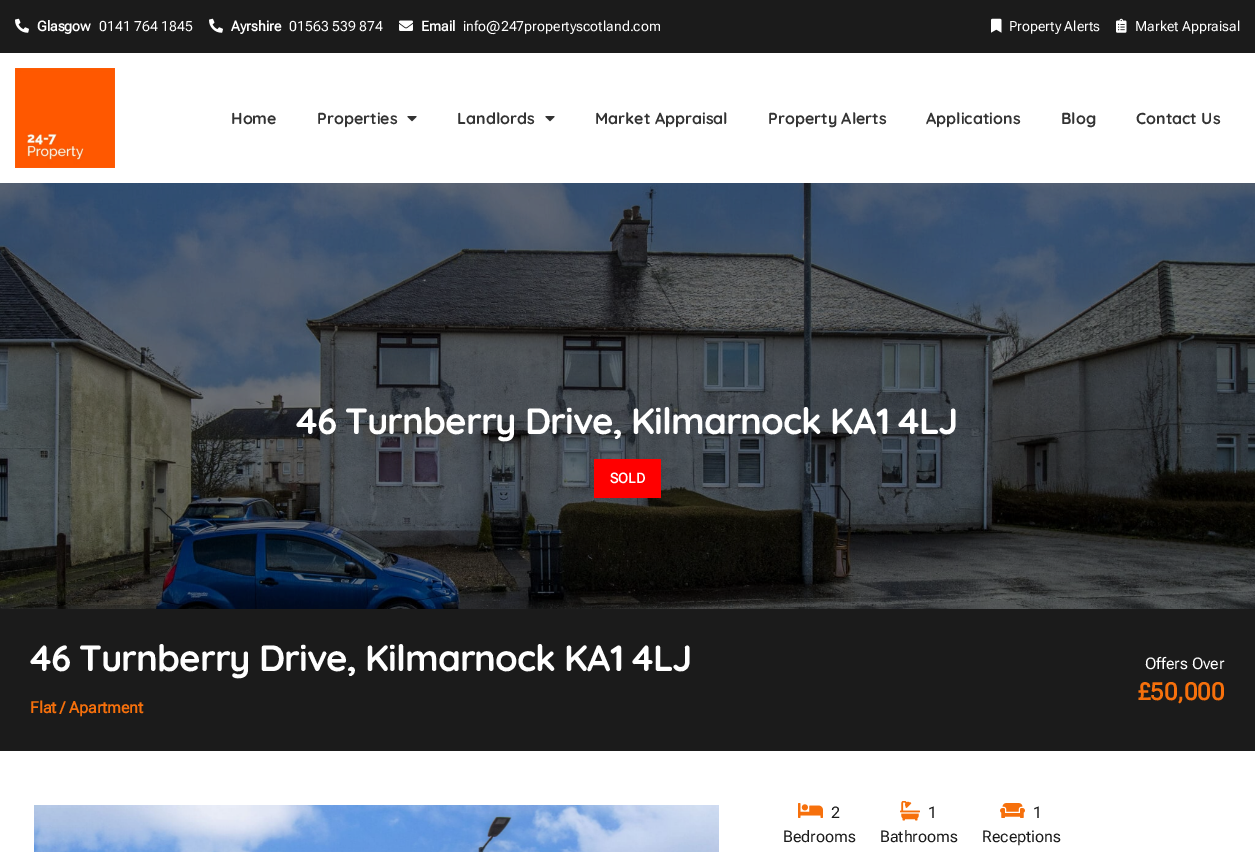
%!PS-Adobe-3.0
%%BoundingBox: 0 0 1255 852
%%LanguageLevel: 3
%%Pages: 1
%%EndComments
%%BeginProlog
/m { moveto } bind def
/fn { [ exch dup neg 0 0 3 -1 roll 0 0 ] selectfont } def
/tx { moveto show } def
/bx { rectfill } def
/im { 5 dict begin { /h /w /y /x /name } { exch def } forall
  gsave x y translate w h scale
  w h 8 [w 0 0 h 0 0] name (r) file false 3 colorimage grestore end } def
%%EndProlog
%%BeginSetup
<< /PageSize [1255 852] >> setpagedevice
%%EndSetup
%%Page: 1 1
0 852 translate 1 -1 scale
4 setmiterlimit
1 setgray
0 0 1255 852 bx
0.106 setgray
0 0 1255 53 bx
(image0.raw) 15 18 14 15 im
/RobotoFlex-Bold 14 fn
1 setgray
(Glasgow) 37 31 tx
/RobotoFlex-Regular 14 fn
(0141 764 1845) 99 31 tx
(image0.raw) 209 18 14 15 im
/RobotoFlex-Bold 14 fn
(Ayrshire) 231 31 tx
/RobotoFlex-Regular 14 fn
(01563 539 874) 289 31 tx
(image1.raw) 399 20 14 11 im
/RobotoFlex-Bold 14 fn
(Email) 421 31 tx
/RobotoFlex-Regular 14 fn
(info@247propertyscotland.com) 463 31 tx
(image2.raw) 991 18 11 15 im
(Property Alerts) 1009 31 tx
(image3.raw) 1116 18 11 15 im
(Market Appraisal) 1135 31 tx
(image4.raw) 15 68 100 100 im
/Quicksand-Bold 16 fn
0.2 setgray
(Home) 231 124 tx
(Properties) 317 124 tx
(image5.raw) 407 116 10 6 im
(Landlords) 457 124 tx
(image5.raw) 545 116 10 6 im
(Market Appraisal) 595 124 tx
(Property Alerts) 768 124 tx
(Applications) 926 124 tx
(Blog) 1061 124 tx
(Contact Us) 1136 124 tx
(image6.raw) 0 183 1255 426 im
/Quicksand-Bold 36.6 fn
1 setgray
296 434 m -1 0 (46 Turnberry Drive, Kilmarnock KA1 4LJ) ashow
1 0 0 setrgbcolor
594 459 67 39 bx
/RobotoFlex-Bold 14 fn
1 setgray
(SOLD) 610 483 tx
0.106 setgray
0 609 1255 142 bx
/Quicksand-Bold 36.6 fn
1 setgray
30 671 m -1 0 (46 Turnberry Drive, Kilmarnock KA1 4LJ) ashow
/RobotoFlex-Bold 16 fn
0.965 0.439 0.047 setrgbcolor
(Flat / Apartment) 30 713 tx
/RobotoFlex-Regular 16 fn
1 setgray
(Offers Over) 1145 669 tx
/RobotoFlex-Bold 24 fn
0.965 0.439 0.047 setrgbcolor
(£50,000) 1138 700 tx
(image7.raw) 34 805 685 47 im
(image8.raw) 798 803 25 15 im
/RobotoFlex-Regular 16 fn
0.106 setgray
(2) 831 818 tx
(Bedrooms) 783 842 tx
(image9.raw) 900 801 20 20 im
(1) 928 818 tx
(Bathrooms) 880 842 tx
(image10.raw) 1000 803 25 15 im
(1) 1033 818 tx
(Receptions) 982 842 tx
showpage
%%EOF
